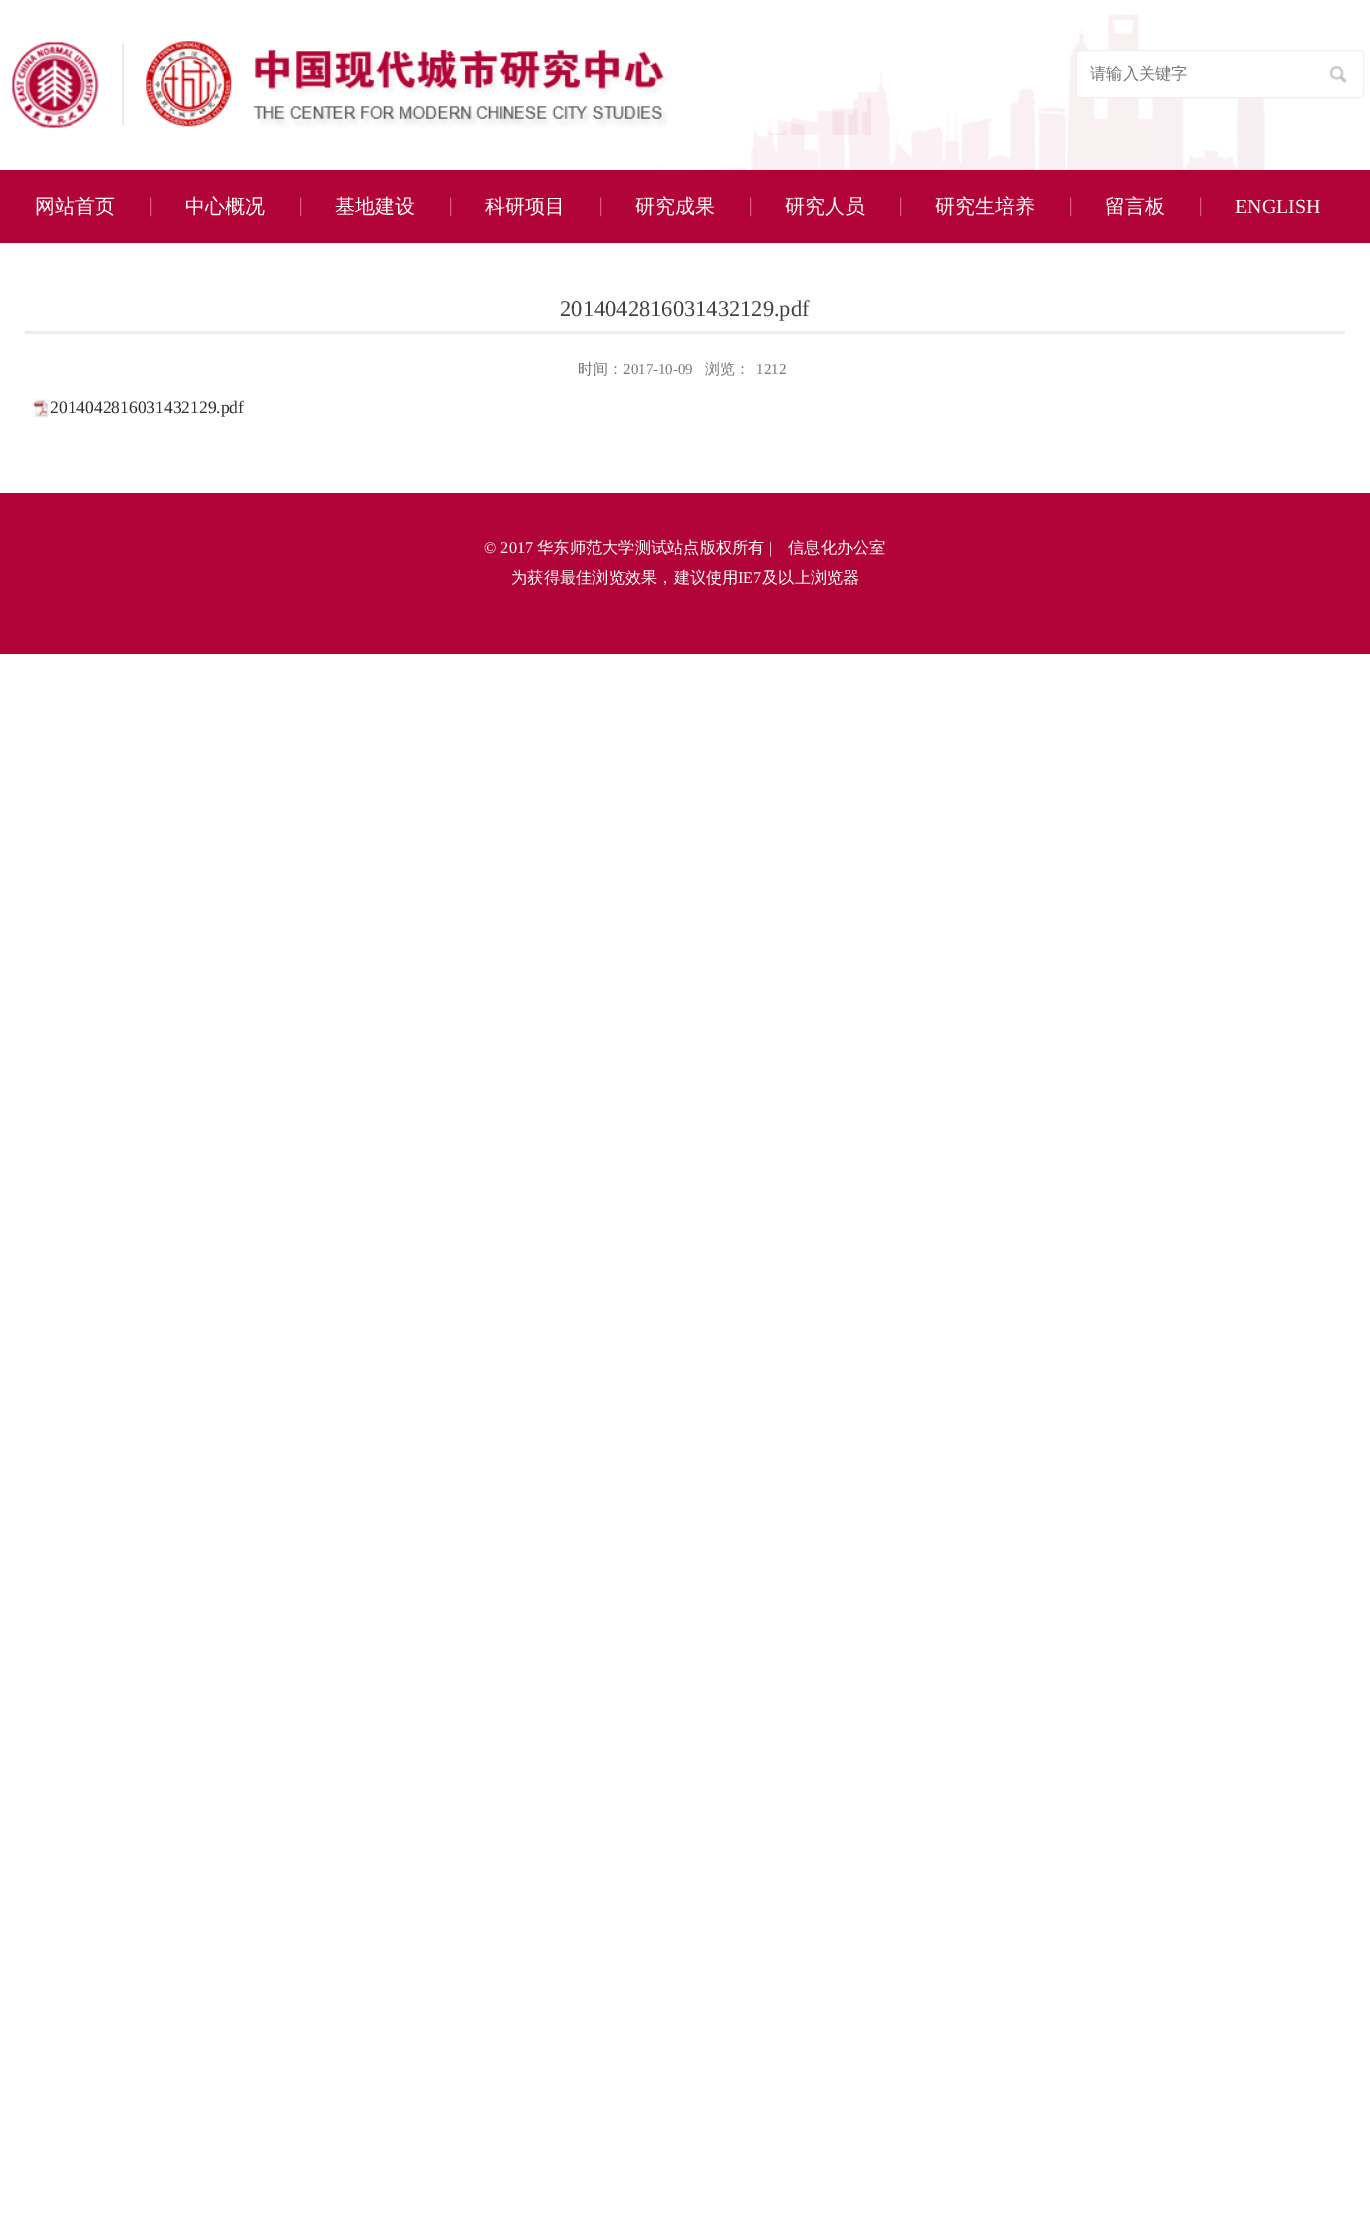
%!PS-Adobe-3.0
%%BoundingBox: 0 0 1370 2218
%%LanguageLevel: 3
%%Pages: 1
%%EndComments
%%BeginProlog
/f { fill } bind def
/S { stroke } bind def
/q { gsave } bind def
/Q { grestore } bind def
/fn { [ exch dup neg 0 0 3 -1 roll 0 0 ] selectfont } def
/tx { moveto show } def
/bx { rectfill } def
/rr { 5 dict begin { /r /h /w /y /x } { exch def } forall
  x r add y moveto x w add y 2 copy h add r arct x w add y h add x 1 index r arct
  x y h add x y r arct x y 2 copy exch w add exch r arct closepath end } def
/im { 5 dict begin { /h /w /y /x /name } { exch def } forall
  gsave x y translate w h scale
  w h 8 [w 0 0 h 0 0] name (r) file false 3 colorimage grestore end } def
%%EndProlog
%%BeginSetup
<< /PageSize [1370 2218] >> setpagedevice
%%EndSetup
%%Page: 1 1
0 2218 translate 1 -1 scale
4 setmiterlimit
1 setgray
0 0 1370 2218 bx
(image0.raw) 654 14 611 156 im
(image1.raw) 12 41 859 94 im
1076.5 50.5 287 47 3.5 rr q f Q
0.937 setgray
S
/WenQuanYiZenHei-Medium 16.25 fn
0.471 setgray
(请输入关键字) 1090 79 tx
(image2.raw) 1330 66 17 17 im
0.702 0.016 0.216 setrgbcolor
0 170 1370 73 bx
/WenQuanYiZenHei-Medium 20 fn
1 setgray
(网站首页) 35 213 tx
(image3.raw) 150 197 2 20 im
(中心概况) 185 213 tx
(image3.raw) 300 197 2 20 im
(基地建设) 335 213 tx
(image3.raw) 450 197 2 20 im
(科研项目) 485 213 tx
(image3.raw) 600 197 2 20 im
(研究成果) 635 213 tx
(image3.raw) 750 197 2 20 im
(研究人员) 785 213 tx
(image3.raw) 900 197 2 20 im
(研究生培养) 935 213 tx
(image3.raw) 1070 197 2 20 im
(留言板) 1105 213 tx
(image3.raw) 1200 197 2 20 im
/LiberationSerif-Regular 20 fn
(ENGLISH) 1235 213 tx
0.925 setgray
25 331 1320 3 bx
/LiberationSerif-Regular 22.5 fn
0.259 setgray
(2014042816031432129.pdf) 560 316 tx
/WenQuanYiZenHei-Medium 15 fn
0.471 setgray
(时间：) 578 374 tx
/LiberationSerif-Regular 15 fn
(2017-10-09) 623 374 tx
/WenQuanYiZenHei-Medium 15 fn
(浏览：) 705 374 tx
/LiberationSerif-Regular 15 fn
(1212) 756 374 tx
(image4.raw) 33 399 16 19 im
/LiberationSerif-Regular 17.5 fn
0.184 setgray
(2014042816031432129.pdf) 50 413 tx
0.702 0.016 0.216 setrgbcolor
0 493 1370 161 bx
/LiberationSerif-Regular 16.25 fn
1 setgray
(© 2017) 484 553 tx
/WenQuanYiZenHei-Medium 16.25 fn
(华东师范大学测试站点版权所有) 537 553 tx
/LiberationSerif-Regular 16.25 fn
(|) 769 553 tx
/WenQuanYiZenHei-Medium 16.25 fn
(信息化办公室) 788 553 tx
(为获得最佳浏览效果，建议使用) 511 583 tx
/LiberationSerif-Regular 16.25 fn
(IE7) 738 583 tx
/WenQuanYiZenHei-Medium 16.25 fn
(及以上浏览器) 762 583 tx
showpage
%%EOF
